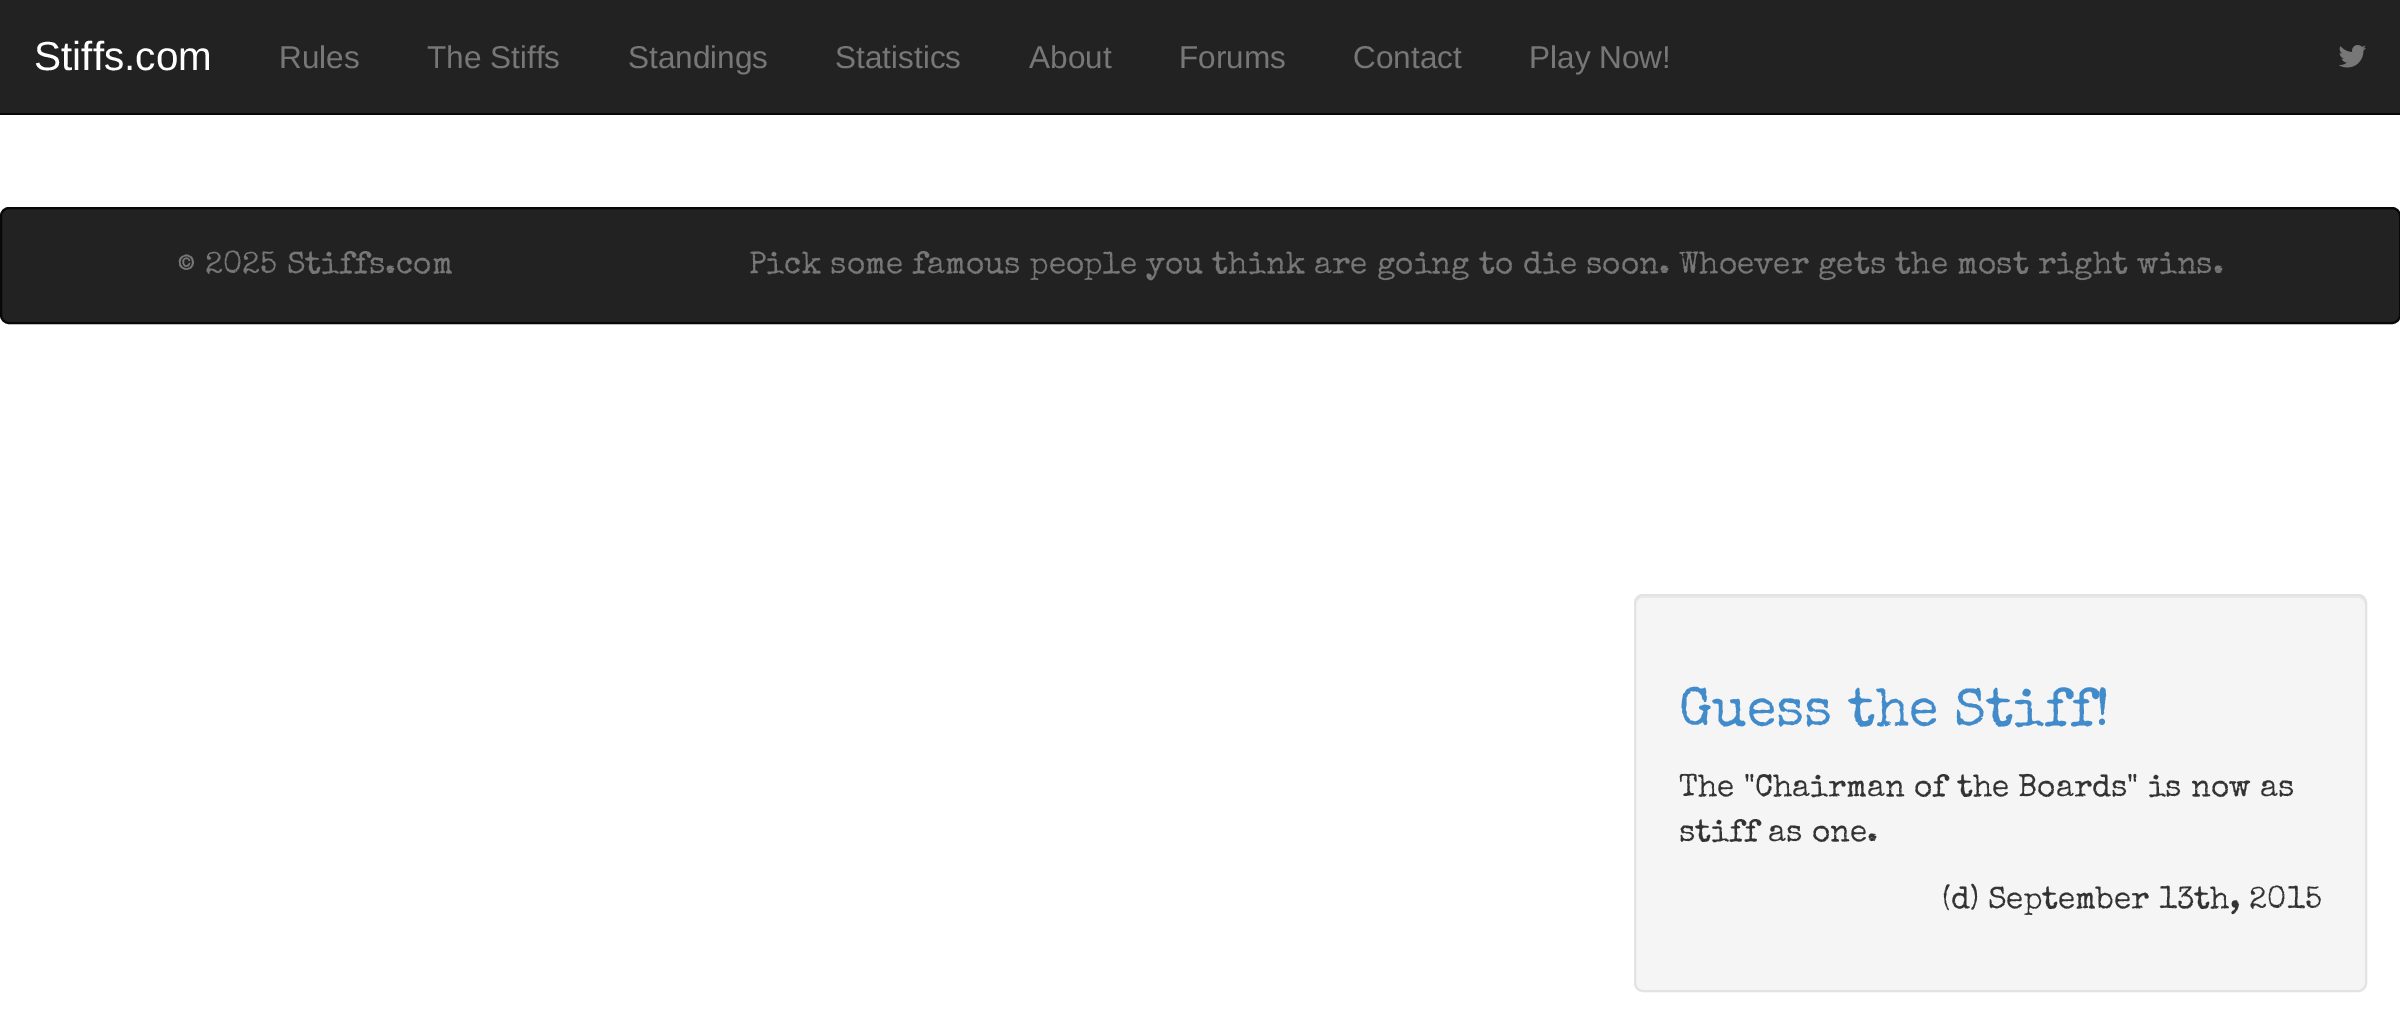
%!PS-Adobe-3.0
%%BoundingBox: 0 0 2400 1036
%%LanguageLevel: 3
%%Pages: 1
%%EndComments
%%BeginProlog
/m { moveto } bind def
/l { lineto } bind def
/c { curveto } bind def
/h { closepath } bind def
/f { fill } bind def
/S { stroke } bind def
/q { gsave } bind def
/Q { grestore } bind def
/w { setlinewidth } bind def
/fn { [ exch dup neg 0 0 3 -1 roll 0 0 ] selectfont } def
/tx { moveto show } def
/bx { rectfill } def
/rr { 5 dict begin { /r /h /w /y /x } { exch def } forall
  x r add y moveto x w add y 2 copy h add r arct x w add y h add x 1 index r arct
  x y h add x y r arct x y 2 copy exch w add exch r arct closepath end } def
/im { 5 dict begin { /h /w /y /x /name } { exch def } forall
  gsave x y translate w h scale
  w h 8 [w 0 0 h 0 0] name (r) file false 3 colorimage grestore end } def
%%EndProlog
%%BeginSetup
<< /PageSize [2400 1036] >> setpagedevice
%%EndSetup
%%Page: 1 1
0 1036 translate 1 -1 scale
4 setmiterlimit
1 setgray
0 0 2400 1036 bx
0.133 setgray
0 0 2400 113 bx
0.031 setgray
0 113 2400 2 bx
/LiberationSans-Regular 40.5 fn
1 setgray
(Stiffs.com) 34 70 tx
/LiberationSans-Regular 31.5 fn
0.467 setgray
(Rules) 279 68 tx
(The Stiffs) 427 68 tx
(Standings) 628 68 tx
(Statistics) 835 68 tx
(About) 1029 68 tx
(Forums) 1179 68 tx
(Contact) 1353 68 tx
(Play Now!) 1529 68 tx
(image0.raw) 2339 45 27 23 im
0.133 setgray
1 208 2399 115 8 rr q f Q
0.031 setgray
2 w
S
/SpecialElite-Regular 31.5 fn
0.467 setgray
(© 2025 Stiffs.com) 177 273 tx
(Pick some famous people you think are going to die soon. Whoever gets the most right wins.) 749 273 tx
0.961 setgray
1634 594 733 398 9 rr f
0.914 setgray
1642 598 m 2358 598 l 2362 598 2365 602 2365 605 c 2365 601 2363 596 2358 596 c 1643 596 l 1638 596 1636 601 1636 605 c 1636 602 1639 598 1642 598 c h f
0.89 setgray
1635 595 731 396 8 rr S
/SpecialElite-Regular 54 fn
0.259 0.545 0.792 setrgbcolor
(Guess the Stiff!) 1679 725 tx
/SpecialElite-Regular 31.5 fn
0.2 setgray
(The "Chairman of the Boards" is now as) 1679 796 tx
(stiff as one.) 1679 841 tx
(\(d\) September 13th, 2015) 1942 908 tx
showpage
%%EOF
